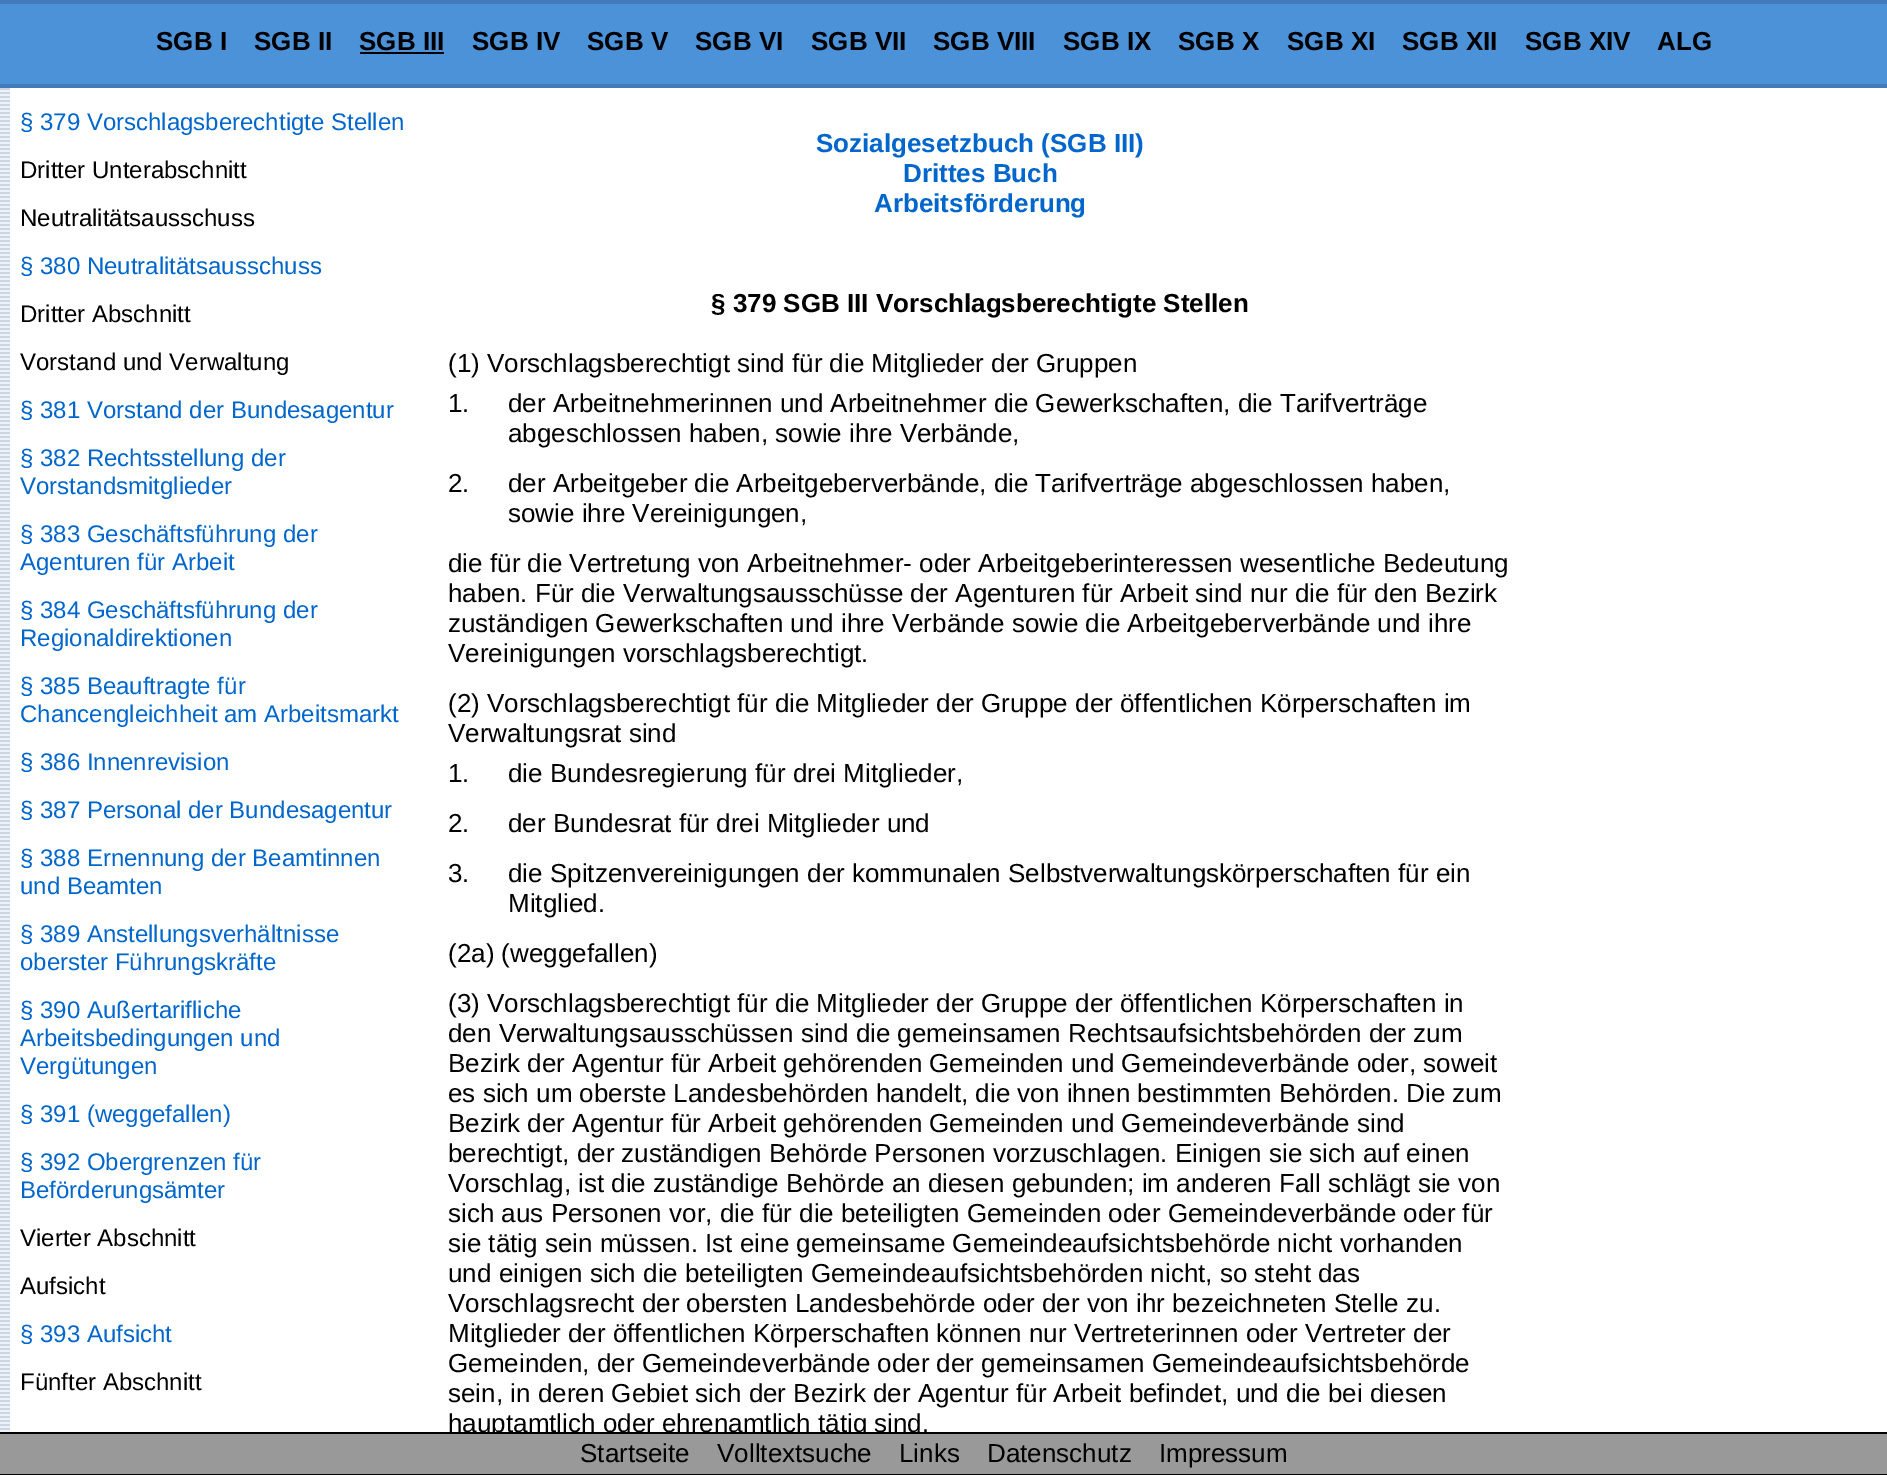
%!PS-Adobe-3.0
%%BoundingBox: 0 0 1887 1475
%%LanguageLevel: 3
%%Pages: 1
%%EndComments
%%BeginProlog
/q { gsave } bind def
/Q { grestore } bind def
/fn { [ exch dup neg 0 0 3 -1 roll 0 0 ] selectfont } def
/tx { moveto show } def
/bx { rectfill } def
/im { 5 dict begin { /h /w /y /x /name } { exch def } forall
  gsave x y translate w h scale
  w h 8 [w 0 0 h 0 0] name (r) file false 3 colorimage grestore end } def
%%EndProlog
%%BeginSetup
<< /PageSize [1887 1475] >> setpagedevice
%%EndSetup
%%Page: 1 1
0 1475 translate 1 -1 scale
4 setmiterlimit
1 setgray
0 0 1887 1475 bx
0.294 0.573 0.851 setrgbcolor
0 4 1887 80 bx
0.267 0.478 0.733 setrgbcolor
0 0 1887 4 bx
0 84 1887 4 bx
/LiberationSans-Bold 26 fn
0 setgray
(SGB I) 156 50 tx
(SGB II) 254 50 tx
(SGB III) 359 50 tx
360 52 84 2 bx
(SGB IV) 472 50 tx
(SGB V) 587 50 tx
(SGB VI) 695 50 tx
(SGB VII) 811 50 tx
(SGB VIII) 933 50 tx
(SGB IX) 1063 50 tx
(SGB X) 1178 50 tx
(SGB XI) 1287 50 tx
(SGB XII) 1402 50 tx
(SGB XIV) 1525 50 tx
(ALG) 1657 50 tx
(image0.raw) 0 88 10 1344 im
/LiberationSans-Regular 24 fn
0 0.4 0.8 setrgbcolor
(§ 379 Vorschlagsberechtigte Stellen) 20 130 tx
0 setgray
(Dritter Unterabschnitt) 20 178 tx
(Neutralitätsausschuss) 20 226 tx
0 0.4 0.8 setrgbcolor
(§ 380 Neutralitätsausschuss) 20 274 tx
0 setgray
(Dritter Abschnitt) 20 322 tx
(Vorstand und Verwaltung) 20 370 tx
0 0.4 0.8 setrgbcolor
(§ 381 Vorstand der Bundesagentur) 20 418 tx
(§ 382 Rechtsstellung der) 20 466 tx
(Vorstandsmitglieder) 20 494 tx
(§ 383 Geschäftsführung der) 20 542 tx
(Agenturen für Arbeit) 20 570 tx
(§ 384 Geschäftsführung der) 20 618 tx
(Regionaldirektionen) 20 646 tx
(§ 385 Beauftragte für) 20 694 tx
(Chancengleichheit am Arbeitsmarkt) 20 722 tx
(§ 386 Innenrevision) 20 770 tx
(§ 387 Personal der Bundesagentur) 20 818 tx
(§ 388 Ernennung der Beamtinnen) 20 866 tx
(und Beamten) 20 894 tx
(§ 389 Anstellungsverhältnisse) 20 942 tx
(oberster Führungskräfte) 20 970 tx
(§ 390 Außertarifliche) 20 1018 tx
(Arbeitsbedingungen und) 20 1046 tx
(Vergütungen) 20 1074 tx
(§ 391 \(weggefallen\)) 20 1122 tx
(§ 392 Obergrenzen für) 20 1170 tx
(Beförderungsämter) 20 1198 tx
0 setgray
(Vierter Abschnitt) 20 1246 tx
(Aufsicht) 20 1294 tx
0 0.4 0.8 setrgbcolor
(§ 393 Aufsicht) 20 1342 tx
0 setgray
(Fünfter Abschnitt) 20 1390 tx
/LiberationSans-Bold 26 fn
0 0.4 0.8 setrgbcolor
(Sozialgesetzbuch \(SGB III\)) 816 152 tx
(Drittes Buch) 903 182 tx
(Arbeitsförderung) 874 212 tx
0 setgray
(§ 379 SGB III Vorschlagsberechtigte Stellen) 711 312 tx
/LiberationSans-Regular 26 fn
(\(1\) Vorschlagsberechtigt sind für die Mitglieder der Gruppen) 448 372 tx
(1.) 448 412 tx
(der Arbeitnehmerinnen und Arbeitnehmer die Gewerkschaften, die Tarifverträge) 508 412 tx
(abgeschlossen haben, sowie ihre Verbände,) 508 442 tx
(2.) 448 492 tx
(der Arbeitgeber die Arbeitgeberverbände, die Tarifverträge abgeschlossen haben,) 508 492 tx
(sowie ihre Vereinigungen,) 508 522 tx
(die für die Vertretung von Arbeitnehmer- oder Arbeitgeberinteressen wesentliche Bedeutung) 448 572 tx
(haben. Für die Verwaltungsausschüsse der Agenturen für Arbeit sind nur die für den Bezirk) 448 602 tx
(zuständigen Gewerkschaften und ihre Verbände sowie die Arbeitgeberverbände und ihre) 448 632 tx
(Vereinigungen vorschlagsberechtigt.) 448 662 tx
(\(2\) Vorschlagsberechtigt für die Mitglieder der Gruppe der öffentlichen Körperschaften im) 448 712 tx
(Verwaltungsrat sind) 448 742 tx
(1.) 448 782 tx
(die Bundesregierung für drei Mitglieder,) 508 782 tx
(2.) 448 832 tx
(der Bundesrat für drei Mitglieder und) 508 832 tx
(3.) 448 882 tx
(die Spitzenvereinigungen der kommunalen Selbstverwaltungskörperschaften für ein) 508 882 tx
(Mitglied.) 508 912 tx
(\(2a\) \(weggefallen\)) 448 962 tx
(\(3\) Vorschlagsberechtigt für die Mitglieder der Gruppe der öffentlichen Körperschaften in) 448 1012 tx
(den Verwaltungsausschüssen sind die gemeinsamen Rechtsaufsichtsbehörden der zum) 448 1042 tx
(Bezirk der Agentur für Arbeit gehörenden Gemeinden und Gemeindeverbände oder, soweit) 448 1072 tx
(es sich um oberste Landesbehörden handelt, die von ihnen bestimmten Behörden. Die zum) 448 1102 tx
(Bezirk der Agentur für Arbeit gehörenden Gemeinden und Gemeindeverbände sind) 448 1132 tx
(berechtigt, der zuständigen Behörde Personen vorzuschlagen. Einigen sie sich auf einen) 448 1162 tx
(Vorschlag, ist die zuständige Behörde an diesen gebunden; im anderen Fall schlägt sie von) 448 1192 tx
(sich aus Personen vor, die für die beteiligten Gemeinden oder Gemeindeverbände oder für) 448 1222 tx
(sie tätig sein müssen. Ist eine gemeinsame Gemeindeaufsichtsbehörde nicht vorhanden) 448 1252 tx
(und einigen sich die beteiligten Gemeindeaufsichtsbehörden nicht, so steht das) 448 1282 tx
(Vorschlagsrecht der obersten Landesbehörde oder der von ihr bezeichneten Stelle zu.) 448 1312 tx
(Mitglieder der öffentlichen Körperschaften können nur Vertreterinnen oder Vertreter der) 448 1342 tx
(Gemeinden, der Gemeindeverbände oder der gemeinsamen Gemeindeaufsichtsbehörde) 448 1372 tx
(sein, in deren Gebiet sich der Bezirk der Agentur für Arbeit befindet, und die bei diesen) 448 1402 tx
q
440 88 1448 1344 rectclip
(hauptamtlich oder ehrenamtlich tätig sind.) 448 1432 tx
Q
0.6 setgray
0 1434 1887 40 bx
0 setgray
0 1432 1887 2 bx
0 1474 1887 1 bx
(Startseite) 580 1462 tx
(Volltextsuche) 717 1462 tx
(Links) 899 1462 tx
(Datenschutz) 987 1462 tx
(Impressum) 1159 1462 tx
showpage
%%EOF
